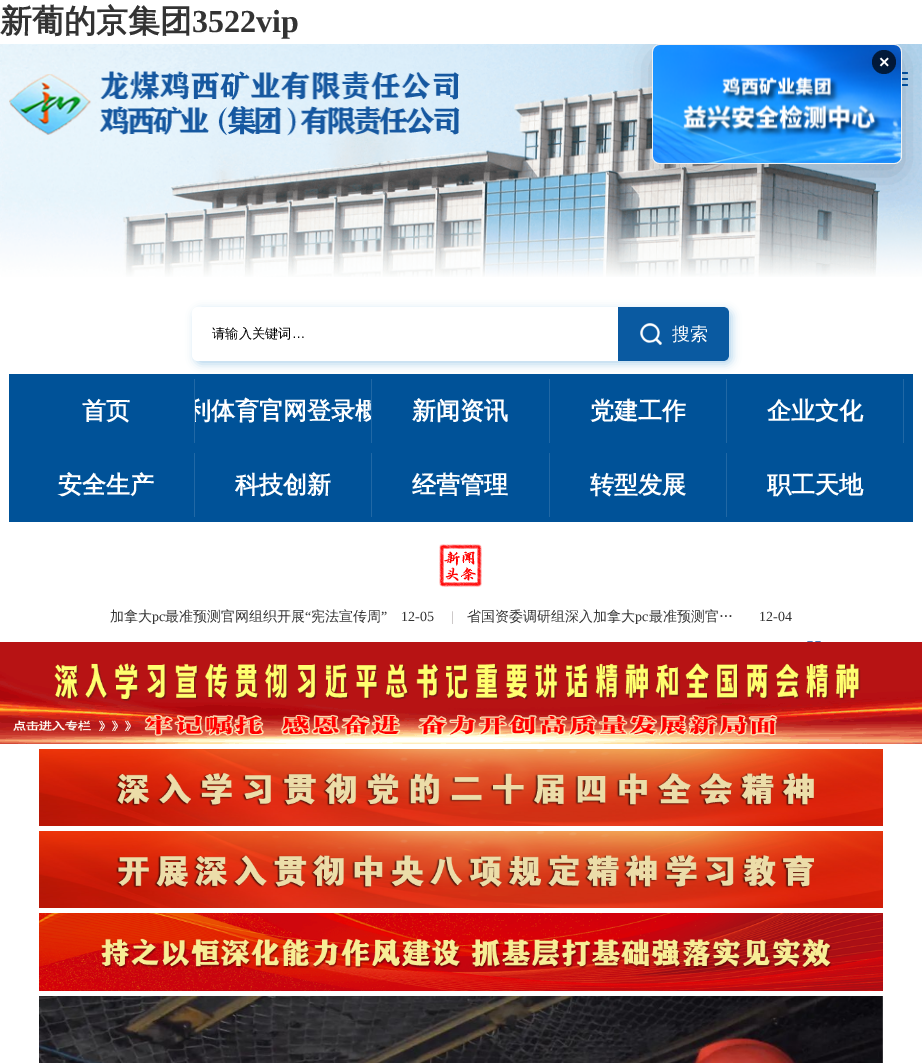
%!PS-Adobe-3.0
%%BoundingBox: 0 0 922 1063
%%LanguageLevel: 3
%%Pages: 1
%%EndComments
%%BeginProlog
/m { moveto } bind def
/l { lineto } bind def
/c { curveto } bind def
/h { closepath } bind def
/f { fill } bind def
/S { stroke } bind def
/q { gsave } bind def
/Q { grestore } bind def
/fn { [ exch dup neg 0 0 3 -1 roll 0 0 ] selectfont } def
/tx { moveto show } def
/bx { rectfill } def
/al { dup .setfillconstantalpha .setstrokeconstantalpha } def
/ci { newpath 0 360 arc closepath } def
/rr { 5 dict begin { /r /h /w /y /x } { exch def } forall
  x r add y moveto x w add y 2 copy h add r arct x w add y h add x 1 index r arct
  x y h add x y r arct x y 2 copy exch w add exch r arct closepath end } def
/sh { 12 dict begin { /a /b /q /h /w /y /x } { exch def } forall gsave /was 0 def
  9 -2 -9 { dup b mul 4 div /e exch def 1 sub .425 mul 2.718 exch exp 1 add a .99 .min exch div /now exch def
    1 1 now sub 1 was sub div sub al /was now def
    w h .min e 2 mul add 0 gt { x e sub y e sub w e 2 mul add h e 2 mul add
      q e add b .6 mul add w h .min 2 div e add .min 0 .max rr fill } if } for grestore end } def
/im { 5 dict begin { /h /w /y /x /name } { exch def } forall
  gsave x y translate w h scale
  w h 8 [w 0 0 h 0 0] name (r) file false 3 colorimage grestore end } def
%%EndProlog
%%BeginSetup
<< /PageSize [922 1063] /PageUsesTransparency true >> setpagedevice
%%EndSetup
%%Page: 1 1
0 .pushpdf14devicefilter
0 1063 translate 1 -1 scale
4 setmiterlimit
1 setgray
0 0 922 1063 bx
/WenQuanYiZenHei-Bold 32 fn
0.2 setgray
(新葡的京集团) 0 32 tx
/LiberationSerif-Bold 32 fn
(3522vip) 192 32 tx
(image1.raw) 0 44 922 233 im
0 0.329 0.655 setrgbcolor
886 72 22 2 1 rr f
886 78 22 2 1 rr f
886 84 22 2 1 rr f
q
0 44 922 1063 rectclip
0 setgray
652 54 250 120 8 15 0.2 sh
Q
0.941 setgray
652 44 250 120 8 rr f
0.1 al
1 setgray
652.5 44.5 249 119 7.5 rr S
1 al
(image0.raw) 653 45 248 118 im
0.7 al
0 setgray
884 62 12 ci f
/LiberationSans-Bold 18 fn
1 al
1 setgray
(×) 879 68 tx
(image2.raw) 9 71 451 65 im
0 0.322 0.596 setrgbcolor
9 374 904 148 bx
0.702 0.835 0.929 setrgbcolor
195 310 537 54 6 4.5 1 sh
1 setgray
192 307 537 54 6 rr f
/WenQuanYiZenHei-Medium 13.25 fn
0 setgray
(请输入关键词) 212 338 tx
/LiberationSans-Regular 13.25 fn
(…) 292 338 tx
0.039 0.353 0.631 setrgbcolor
618 307 m 723 307 l 726.5 307 729 309.5 729 313 c 729 355 l 729 358.5 726.5 361 723 361 c 618 361 l h f
(image3.raw) 640 323 22 22 im
/WenQuanYiZenHei-Medium 18 fn
1 setgray
(搜索) 672 340 tx
0.129 0.408 0.647 setrgbcolor
194 379 1 64 bx
/WenQuanYiZenHei-Bold 24 fn
1 setgray
(首页) 82 419 tx
0.129 0.408 0.647 setrgbcolor
371 379 1 64 bx
q
195 379 176 64 rectclip
1 setgray
(利体育官网登录概) 187 419 tx
Q
549 379 1 64 bx
1 setgray
(新闻资讯) 412 419 tx
0.129 0.408 0.647 setrgbcolor
726 379 1 64 bx
1 setgray
(党建工作) 590 419 tx
0.129 0.408 0.647 setrgbcolor
903 379 1 64 bx
1 setgray
(企业文化) 767 419 tx
0.129 0.408 0.647 setrgbcolor
194 453 1 64 bx
1 setgray
(安全生产) 58 493 tx
0.129 0.408 0.647 setrgbcolor
371 453 1 64 bx
1 setgray
(科技创新) 235 493 tx
0.129 0.408 0.647 setrgbcolor
549 453 1 64 bx
1 setgray
(经营管理) 412 493 tx
0.129 0.408 0.647 setrgbcolor
726 453 1 64 bx
1 setgray
(转型发展) 590 493 tx
(职工天地) 767 493 tx
(image4.raw) 439 544 43 43 im
/WenQuanYiZenHei-Medium 14 fn
0.2 setgray
(加拿大) 110 621 tx
(最准预测官网组织开展) 165 621 tx
/LiberationSerif-Regular 14 fn
(“) 305 621 tx
/WenQuanYiZenHei-Medium 14 fn
(宪法宣传周) 311 621 tx
/LiberationSerif-Regular 14 fn
(”) 381 621 tx
(pc) 152 621 tx
(12-05) 401 621 tx
0.733 0.714 0.714 setrgbcolor
(|) 451 621 tx
/WenQuanYiZenHei-Medium 14 fn
0.2 setgray
(省国资委调研组深入加拿大) 467 621 tx
/LiberationSerif-Regular 14 fn
(pc) 635 621 tx
/WenQuanYiZenHei-Medium 14 fn
649 621 m -1 0 32 (最准预测官…) widthshow
/LiberationSerif-Regular 14 fn
(12-04) 759 621 tx
(image5.raw) 807 641 14 1 im
(image6.raw) 0 642 922 102 im
(image7.raw) 39 749 844 77 im
(image8.raw) 39 831 844 77 im
(image9.raw) 39 913 844 78 im
(image10.raw) 39 996 844 67 im
.poppdf14devicefilter showpage
%%EOF
